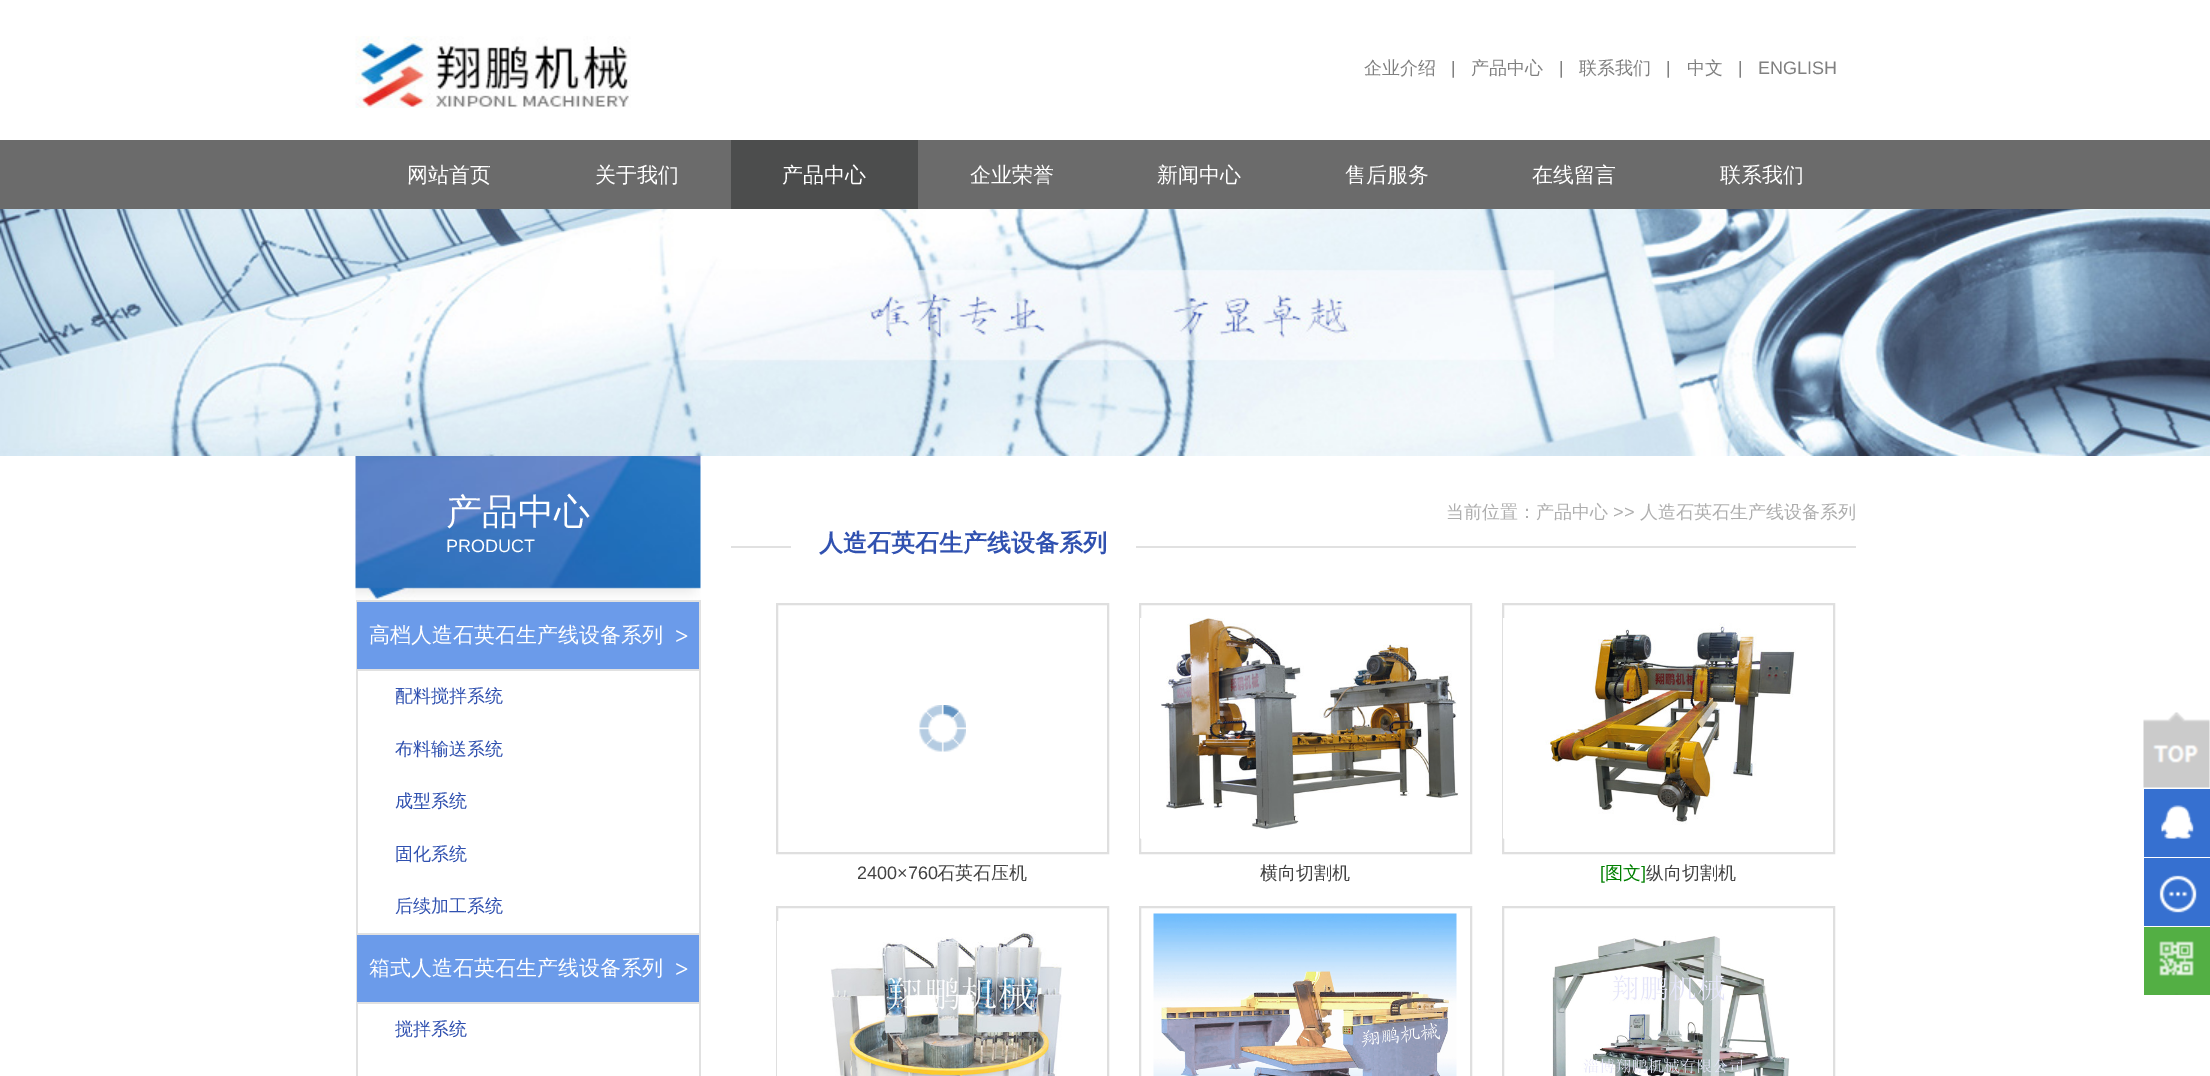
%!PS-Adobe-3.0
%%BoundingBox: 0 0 2210 1076
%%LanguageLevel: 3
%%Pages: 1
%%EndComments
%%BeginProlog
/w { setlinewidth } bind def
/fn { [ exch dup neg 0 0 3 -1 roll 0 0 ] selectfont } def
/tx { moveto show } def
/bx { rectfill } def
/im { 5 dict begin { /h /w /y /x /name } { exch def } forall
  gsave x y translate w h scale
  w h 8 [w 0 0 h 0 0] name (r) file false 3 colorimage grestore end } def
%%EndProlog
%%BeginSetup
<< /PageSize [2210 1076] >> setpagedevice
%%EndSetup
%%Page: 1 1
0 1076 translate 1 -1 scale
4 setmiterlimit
1 setgray
0 0 2210 1076 bx
(image0.raw) 355 36 276 72 im
/WenQuanYiZenHei-Medium 18 fn
0.502 setgray
(企业介绍) 1364 74 tx
/LiberationSans-Regular 18 fn
(|) 1451 74 tx
/WenQuanYiZenHei-Medium 18 fn
(产品中心) 1471 74 tx
/LiberationSans-Regular 18 fn
(|) 1559 74 tx
/WenQuanYiZenHei-Medium 18 fn
(联系我们) 1579 74 tx
/LiberationSans-Regular 18 fn
(|) 1666 74 tx
/WenQuanYiZenHei-Medium 18 fn
(中文) 1687 74 tx
/LiberationSans-Regular 18 fn
(|) 1738 74 tx
(ENGLISH) 1758 74 tx
0.42 setgray
0 140 2210 69 bx
/WenQuanYiZenHei-Medium 21 fn
1 setgray
(网站首页) 407 182 tx
(关于我们) 595 182 tx
0.298 0.302 0.302 setrgbcolor
731 140 187 69 bx
1 setgray
(产品中心) 782 182 tx
(企业荣誉) 970 182 tx
(新闻中心) 1157 182 tx
(售后服务) 1345 182 tx
(在线留言) 1532 182 tx
(联系我们) 1720 182 tx
(image1.raw) 0 209 2210 247 im
(image2.raw) 355 456 346 144 im
/WenQuanYiZenHei-Medium 36 fn
(产品中心) 446 524 tx
/LiberationSans-Regular 18 fn
(PRODUCT) 446 552 tx
0.882 setgray
356 600 345 2 bx
699 600 2 476 bx
356 600 2 476 bx
357 933 342 2 bx
0.42 0.608 0.918 setrgbcolor
357 602 342 67 bx
0.882 setgray
357 669 342 2 bx
/WenQuanYiZenHei-Medium 21 fn
1 setgray
(高档人造石英石生产线设备系列) 369 642 tx
/LiberationSerif-Bold 24 fn
(>) 675 644 tx
/WenQuanYiZenHei-Medium 18 fn
0.188 0.318 0.69 setrgbcolor
(配料搅拌系统) 395 702 tx
(布料输送系统) 395 755 tx
(成型系统) 395 807 tx
(固化系统) 395 860 tx
(后续加工系统) 395 912 tx
0.42 0.608 0.918 setrgbcolor
357 935 342 67 bx
0.882 setgray
357 1002 342 2 bx
/WenQuanYiZenHei-Medium 21 fn
1 setgray
(箱式人造石英石生产线设备系列) 369 975 tx
/LiberationSerif-Bold 24 fn
(>) 675 977 tx
/WenQuanYiZenHei-Medium 18 fn
0.188 0.318 0.69 setrgbcolor
(搅拌系统) 395 1035 tx
0.882 setgray
731 546 1125 2 bx
0.682 setgray
(当前位置：产品中心) 1446 518 tx
/LiberationSans-Regular 18 fn
(>>) 1613 518 tx
/WenQuanYiZenHei-Medium 18 fn
(人造石英石生产线设备系列) 1640 518 tx
1 setgray
791 546 345 2 bx
/WenQuanYiZenHei-Bold 24 fn
0.188 0.318 0.69 setrgbcolor
(人造石英石生产线设备系列) 819 551 tx
0.875 setgray
2 w
777 604 331 249 rectstroke
(image3.raw) 919 705 47 47 im
/LiberationSans-Regular 18 fn
0.259 setgray
(2400×760) 857 879 tx
/WenQuanYiZenHei-Medium 18 fn
(石英石压机) 937 879 tx
0.875 setgray
1140 604 331 249 rectstroke
(image4.raw) 1140 618 319 221 im
0.259 setgray
(横向切割机) 1260 879 tx
0.875 setgray
1503 604 331 249 rectstroke
(image5.raw) 1503 618 293 221 im
/LiberationSans-Regular 18 fn
0 0.502 0 setrgbcolor
([) 1600 879 tx
/WenQuanYiZenHei-Medium 18 fn
(图文) 1605 879 tx
/LiberationSans-Regular 18 fn
(]) 1641 879 tx
/WenQuanYiZenHei-Medium 18 fn
0.259 setgray
(纵向切割机) 1646 879 tx
0.875 setgray
777 907 331 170 rectstroke
(image6.raw) 777 921 285 155 im
1140 907 331 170 rectstroke
(image7.raw) 1153 913 304 163 im
1503 907 331 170 rectstroke
(image8.raw) 1552 936 238 140 im
(image9.raw) 2143 712 67 76 im
0.212 0.439 0.816 setrgbcolor
2144 789 66 68 bx
(image10.raw) 2161 805 33 34 im
2144 858 66 68 bx
(image11.raw) 2159 875 38 38 im
0.325 0.686 0.267 setrgbcolor
2144 927 66 68 bx
(image12.raw) 2159 941 35 54 im
showpage
%%EOF
